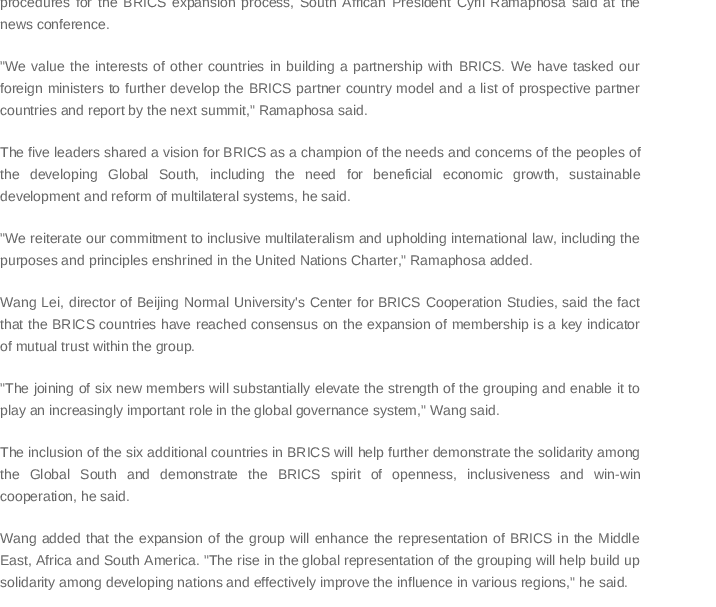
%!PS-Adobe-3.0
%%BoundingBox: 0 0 716 607
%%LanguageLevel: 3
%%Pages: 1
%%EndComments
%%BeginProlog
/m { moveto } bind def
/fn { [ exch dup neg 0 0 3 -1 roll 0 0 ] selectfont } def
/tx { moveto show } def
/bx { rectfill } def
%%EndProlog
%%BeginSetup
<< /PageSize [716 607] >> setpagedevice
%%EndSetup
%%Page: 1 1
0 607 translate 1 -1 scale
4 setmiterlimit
1 setgray
0 0 716 607 bx
/LiberationSans-Regular 14 fn
0.4 setgray
0 7 m 1.9 0 32 (procedures for the BRICS expansion process, South African President Cyril Ramaphosa said at the) widthshow
(news conference.) 0 29 tx
0 71 m 1.5 0 32 ("We value the interests of other countries in building a partnership with BRICS. We have tasked our) widthshow
0 93 m 1 0 32 (foreign ministers to further develop the BRICS partner country model and a list of prospective partner) widthshow
(countries and report by the next summit," Ramaphosa said.) 0 115 tx
0 157 m 0.25 0 32 (The five leaders shared a vision for BRICS as a champion of the needs and concerns of the peoples of) widthshow
0 179 m 6.5 0 32 (the developing Global South, including the need for beneficial economic growth, sustainable) widthshow
(development and reform of multilateral systems, he said.) 0 201 tx
0 243 m 0.4 0 32 ("We reiterate our commitment to inclusive multilateralism and upholding international law, including the) widthshow
(purposes and principles enshrined in the United Nations Charter," Ramaphosa added.) 0 265 tx
0 307 m 1 0 32 (Wang Lei, director of Beijing Normal University's Center for BRICS Cooperation Studies, said the fact) widthshow
0 329 m 0.75 0 32 (that the BRICS countries have reached consensus on the expansion of membership is a key indicator) widthshow
(of mutual trust within the group.) 0 351 tx
0 393 m 0.6 0 32 ("The joining of six new members will substantially elevate the strength of the grouping and enable it to) widthshow
(play an increasingly important role in the global governance system," Wang said.) 0 415 tx
0 457 m 0.2 0 32 (The inclusion of the six additional countries in BRICS will help further demonstrate the solidarity among) widthshow
0 479 m 6.25 0 32 (the Global South and demonstrate the BRICS spirit of openness, inclusiveness and win-win) widthshow
(cooperation, he said.) 0 501 tx
0 543 m 1.25 0 32 (Wang added that the expansion of the group will enhance the representation of BRICS in the Middle) widthshow
0 565 m 0.3 0 32 (East, Africa and South America. "The rise in the global representation of the grouping will help build up) widthshow
(solidarity among developing nations and effectively improve the influence in various regions," he said.) 0 587 tx
showpage
%%EOF
